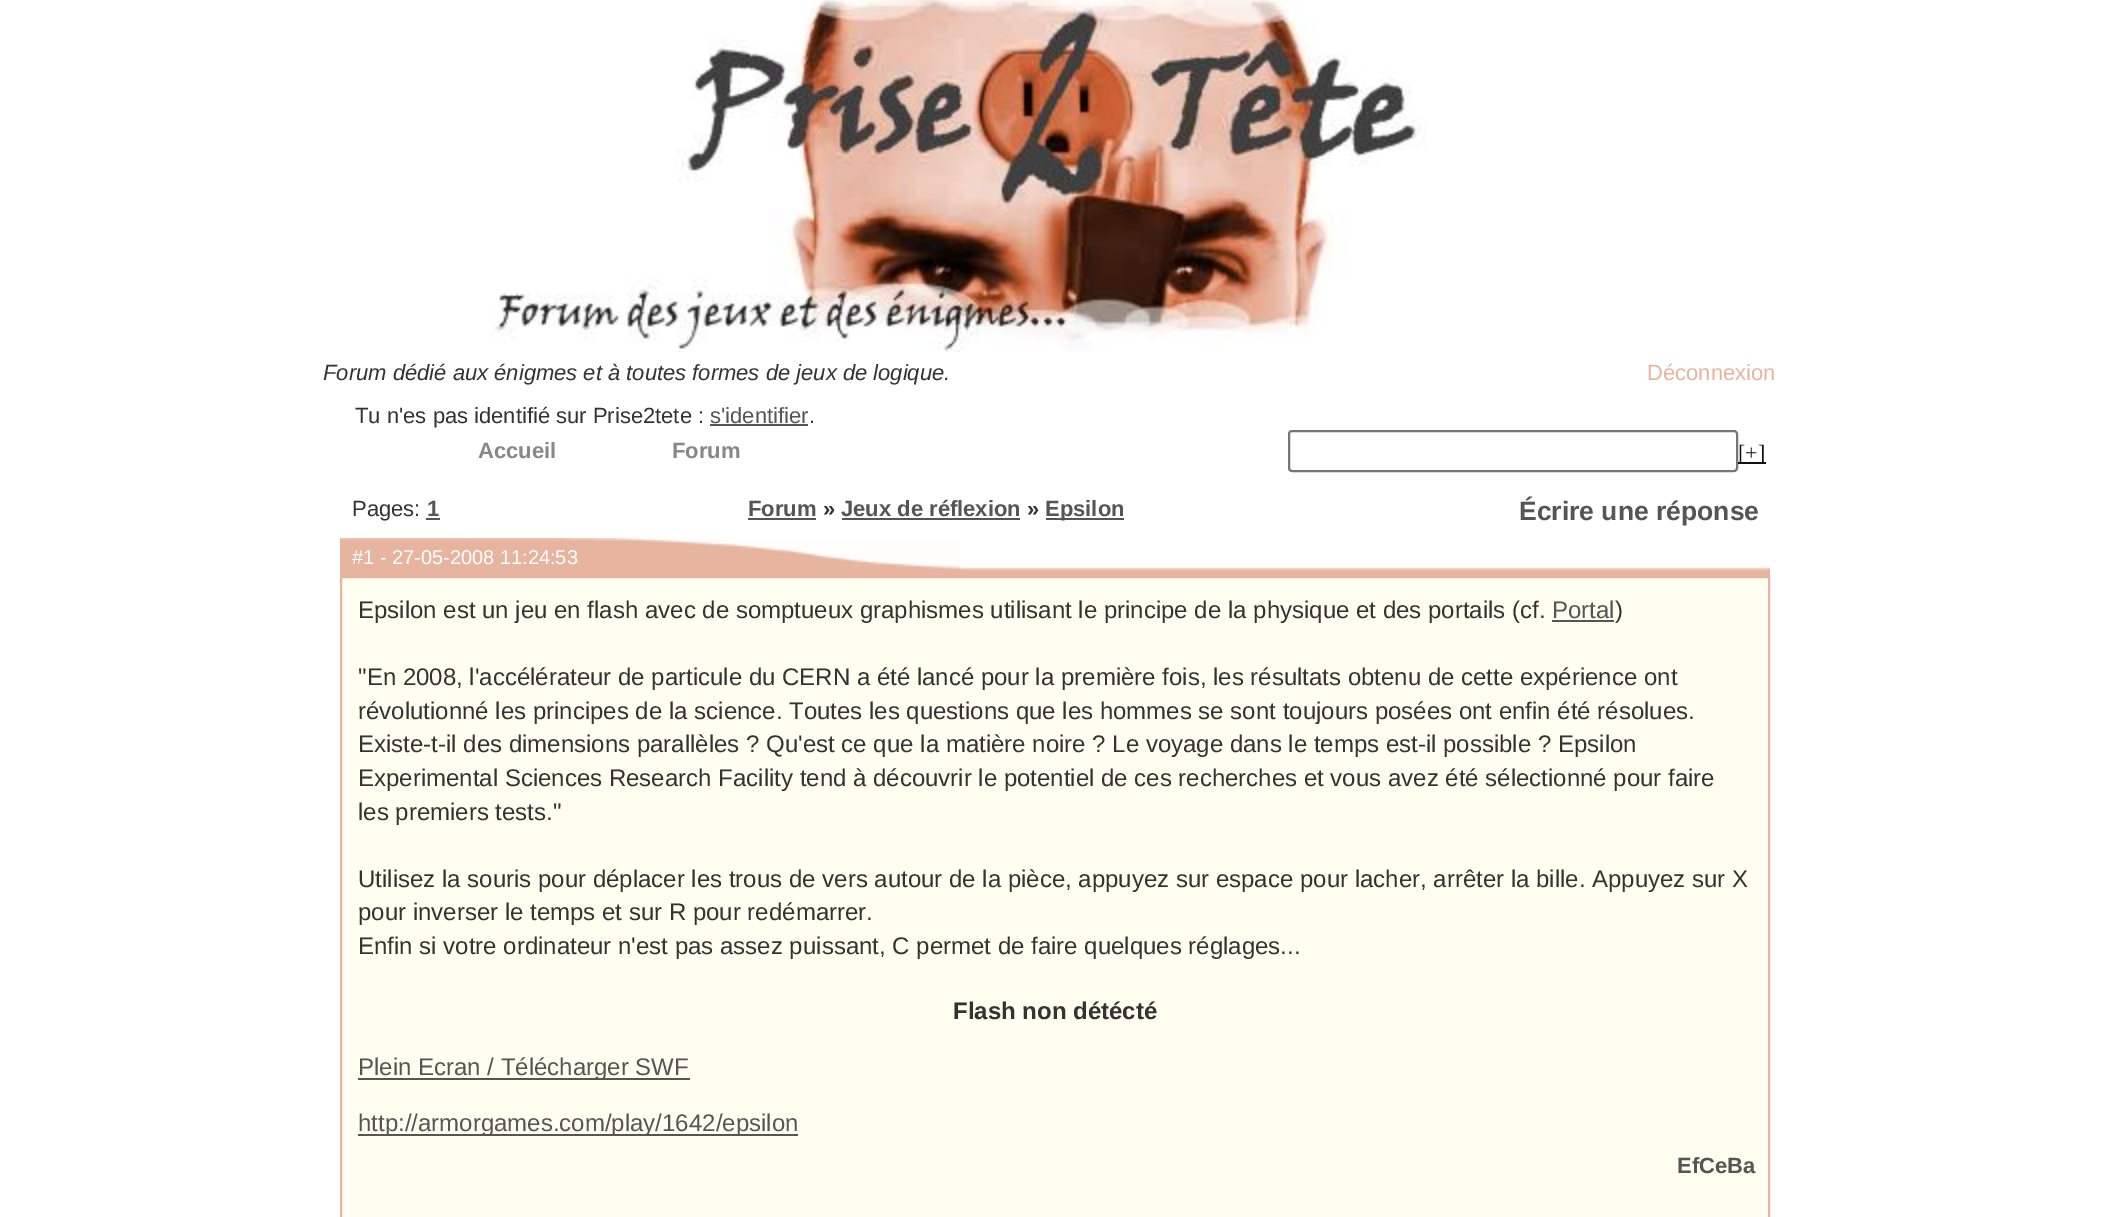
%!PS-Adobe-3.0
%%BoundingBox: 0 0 2110 1217
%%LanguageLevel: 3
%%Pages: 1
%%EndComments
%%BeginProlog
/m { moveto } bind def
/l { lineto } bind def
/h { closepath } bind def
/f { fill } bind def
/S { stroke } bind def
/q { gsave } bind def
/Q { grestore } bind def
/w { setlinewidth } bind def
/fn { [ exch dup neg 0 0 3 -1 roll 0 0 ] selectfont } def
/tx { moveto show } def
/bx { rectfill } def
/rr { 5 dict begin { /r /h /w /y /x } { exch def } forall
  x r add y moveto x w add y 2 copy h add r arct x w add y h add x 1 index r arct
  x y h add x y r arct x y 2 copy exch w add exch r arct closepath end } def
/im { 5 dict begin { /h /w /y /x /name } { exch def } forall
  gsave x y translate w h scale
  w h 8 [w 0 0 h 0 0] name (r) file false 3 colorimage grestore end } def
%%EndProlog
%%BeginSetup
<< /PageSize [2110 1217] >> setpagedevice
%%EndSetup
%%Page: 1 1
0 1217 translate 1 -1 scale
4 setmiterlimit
1 setgray
0 0 2110 1217 bx
(image0.raw) 489 0 938 352 im
/LiberationSans-Italic 22 fn
0.2 setgray
(Forum dédié aux énigmes et à toutes formes de jeux de logique.) 323 380 tx
/LiberationSans-Regular 22 fn
0.906 0.706 0.624 setrgbcolor
(Déconnexion) 1647 380 tx
0.2 setgray
(Tu n'es pas identifié sur Prise2tete :) 355 423 tx
0.333 setgray
(s'identifier) 710 423 tx
710 424 98 2 bx
0.2 setgray
(.) 809 423 tx
/LiberationSans-Bold 22 fn
0.533 setgray
(Accueil) 478 458 tx
(Forum) 672 458 tx
0.463 setgray
2 w
1289 431 448 40 3 rr S
0.067 setgray
1738 462 28 2 bx
/LiberationSerif-Regular 22 fn
([+]) 1738 460 tx
/LiberationSans-Regular 22 fn
0.2 setgray
(Pages:) 352 516 tx
/LiberationSans-Bold 22 fn
0.333 setgray
(1) 427 516 tx
426 518 14 2 bx
(Forum) 748 516 tx
748 518 68 2 bx
0.2 setgray
(») 823 516 tx
0.333 setgray
(Jeux de réflexion) 841 516 tx
842 518 178 2 bx
0.2 setgray
(») 1027 516 tx
0.333 setgray
1046 518 78 2 bx
(Epsilon) 1045 516 tx
/LiberationSans-Bold 26.5 fn
(Écrire une réponse) 1519 520 tx
0.906 0.706 0.624 setrgbcolor
340 571 1430 5 bx
(image1.raw) 340 538 1430 33 im
/LiberationSans-Regular 20 fn
1 setgray
(#1 - 27-05-2008 11:24:53) 352 564 tx
1 1 0.945 setrgbcolor
341 577 m 1769 577 l 1769 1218 l 341 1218 l h q f Q
0.906 0.706 0.624 setrgbcolor
S
/LiberationSans-Regular 24 fn
0.2 setgray
(Epsilon est un jeu en flash avec de somptueux graphismes utilisant le principe de la physique et des portails \(cf.) 358 618 tx
0.333 setgray
(Portal) 1552 618 tx
1552 620 62 2 bx
0.2 setgray
(\)) 1615 618 tx
("En 2008, l'accélérateur de particule du CERN a été lancé pour la première fois, les résultats obtenu de cette expérience ont) 358 685 tx
(révolutionné les principes de la science. Toutes les questions que les hommes se sont toujours posées ont enfin été résolues.) 358 719 tx
(Existe-t-il des dimensions parallèles ? Qu'est ce que la matière noire ? Le voyage dans le temps est-il possible ? Epsilon) 358 752 tx
(Experimental Sciences Research Facility tend à découvrir le potentiel de ces recherches et vous avez été sélectionné pour faire) 358 786 tx
(les premiers tests.") 358 820 tx
(Utilisez la souris pour déplacer les trous de vers autour de la pièce, appuyez sur espace pour lacher, arrêter la bille. Appuyez sur X) 358 887 tx
(pour inverser le temps et sur R pour redémarrer.) 358 920 tx
(Enfin si votre ordinateur n'est pas assez puissant, C permet de faire quelques réglages...) 358 954 tx
/LiberationSans-Bold 24 fn
(Flash non détécté) 953 1019 tx
0.333 setgray
358 1078 332 2 bx
/LiberationSans-Regular 24 fn
(Plein Ecran / Télécharger SWF) 358 1075 tx
358 1134 440 2 bx
(http://armorgames.com/play/1642/epsilon) 358 1131 tx
/LiberationSans-Bold 22 fn
(EfCeBa) 1677 1173 tx
showpage
%%EOF
